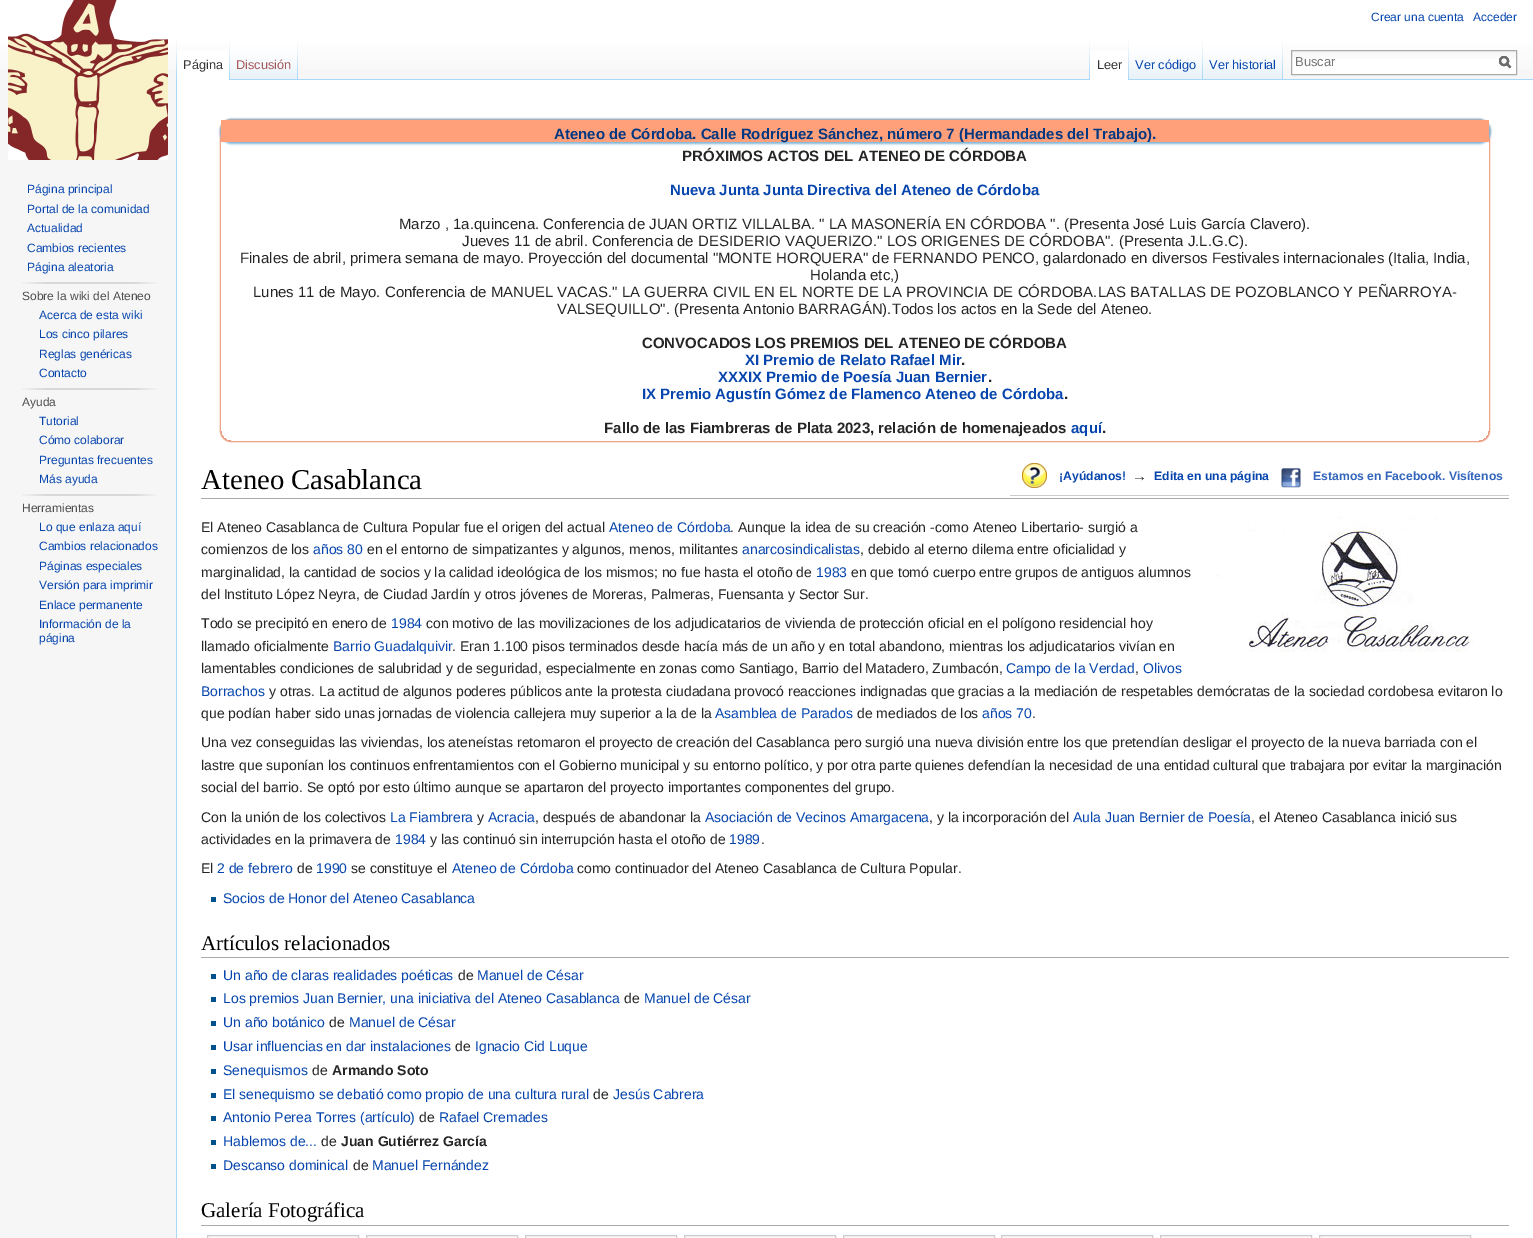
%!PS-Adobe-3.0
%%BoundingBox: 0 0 1533 1238
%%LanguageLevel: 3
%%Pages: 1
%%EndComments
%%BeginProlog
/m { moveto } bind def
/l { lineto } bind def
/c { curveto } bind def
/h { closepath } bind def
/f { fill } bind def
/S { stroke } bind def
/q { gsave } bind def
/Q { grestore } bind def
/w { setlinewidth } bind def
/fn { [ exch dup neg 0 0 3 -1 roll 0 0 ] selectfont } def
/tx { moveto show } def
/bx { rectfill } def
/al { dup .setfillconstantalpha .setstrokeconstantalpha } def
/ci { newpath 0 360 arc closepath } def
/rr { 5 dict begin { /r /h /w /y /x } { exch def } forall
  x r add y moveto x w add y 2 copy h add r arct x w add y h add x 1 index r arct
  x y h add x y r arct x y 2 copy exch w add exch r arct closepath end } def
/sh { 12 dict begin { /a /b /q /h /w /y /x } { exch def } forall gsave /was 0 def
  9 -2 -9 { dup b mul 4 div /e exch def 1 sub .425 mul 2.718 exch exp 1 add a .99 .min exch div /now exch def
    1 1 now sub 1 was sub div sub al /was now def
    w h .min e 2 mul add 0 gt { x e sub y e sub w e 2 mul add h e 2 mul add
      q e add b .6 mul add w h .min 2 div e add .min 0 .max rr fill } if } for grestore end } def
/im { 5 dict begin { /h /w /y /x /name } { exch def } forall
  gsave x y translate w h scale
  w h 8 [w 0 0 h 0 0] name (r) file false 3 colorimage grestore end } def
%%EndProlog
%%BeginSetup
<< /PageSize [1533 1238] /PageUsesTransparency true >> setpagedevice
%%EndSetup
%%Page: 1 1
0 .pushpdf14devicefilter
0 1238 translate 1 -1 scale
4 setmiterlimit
0.965 setgray
0 0 1533 1238 bx
q 0 0 m 1533 0 l 1533 69 l 0 69 l h clip newpath
<< /ShadingType 2 /ColorSpace /DeviceRGB /Coords [767 0 767 80] /Extend [true true] /Function << /FunctionType 3 /Domain [0 1] /Functions [<< /FunctionType 2 /Domain [0 1] /C0 [1 1 1] /C1 [1 1 1] /N 1 >> << /FunctionType 2 /Domain [0 1] /C0 [1 1 1] /C1 [0.965 0.965 0.965] /N 1 >>] /Bounds [0.5] /Encode [0 1 0 1] >> >> shfill Q
/LiberationSans-Regular 12 fn
0.024 0.271 0.678 setrgbcolor
(Crear una cuenta) 1371 21 tx
(Acceder) 1473 21 tx
(image0.raw) 176 40 1 39 im
1 setgray
177 51 52 29 bx
(image1.raw) 229 40 1 40 im
/LiberationSans-Regular 12.75 fn
0.2 setgray
(Página) 183 69 tx
(image2.raw) 230 40 68 40 im
(image3.raw) 297 40 1 39 im
0.647 0.345 0.345 setrgbcolor
(Discusión) 236 69 tx
(image0.raw) 1089 40 1 39 im
0.655 0.843 0.976 setrgbcolor
298 79 1235 1 bx
1 setgray
1090 51 38 29 bx
(image1.raw) 1128 40 1 40 im
0.2 setgray
(Leer) 1097 69 tx
(image4.raw) 1129 40 74 40 im
(image3.raw) 1202 40 1 39 im
0.024 0.271 0.678 setrgbcolor
(Ver código) 1135 69 tx
(image5.raw) 1203 40 80 40 im
(image3.raw) 1282 40 1 39 im
(Ver historial) 1209 69 tx
1 setgray
1292 59 224 15 bx
(image6.raw) 1292 51 224 8 im
0.667 setgray
1291.5 50.5 225 24 rectstroke
0.424 setgray
2 w
1510.5 67.5 m 1506.5 63.5 l S
1504 61 4 ci S
/LiberationSans-Regular 13 fn
0.459 setgray
(Buscar) 1295 66 tx
0.424 setgray
1510.5 67.5 m 1506.5 63.5 l S
1504 61 4 ci S
(image7.raw) 8 0 160 160 im
/LiberationSans-Regular 12 fn
0.024 0.271 0.678 setrgbcolor
(Página principal) 27 193 tx
(Portal de la comunidad) 27 213 tx
(Actualidad) 27 232 tx
(Cambios recientes) 27 252 tx
(Página aleatoria) 27 271 tx
(image8.raw) 22 282 135 2 im
0.302 setgray
(Sobre la wiki del Ateneo) 22 300 tx
0.024 0.271 0.678 setrgbcolor
(Acerca de esta wiki) 39 319 tx
(Los cinco pilares) 39 338 tx
(Reglas genéricas) 39 358 tx
(Contacto) 39 377 tx
(image8.raw) 22 388 135 2 im
0.302 setgray
(Ayuda) 22 406 tx
0.024 0.271 0.678 setrgbcolor
(Tutorial) 39 425 tx
(Cómo colaborar) 39 444 tx
(Preguntas frecuentes) 39 464 tx
(Más ayuda) 39 483 tx
(image8.raw) 22 494 135 2 im
0.302 setgray
(Herramientas) 22 512 tx
0.024 0.271 0.678 setrgbcolor
(Lo que enlaza aquí) 39 531 tx
(Cambios relacionados) 39 550 tx
(Páginas especiales) 39 570 tx
(Versión para imprimir) 39 589 tx
(Enlace permanente) 39 609 tx
(Información de la) 39 628 tx
(página) 39 642 tx
1 setgray
177 80 1356 1158 bx
0.655 0.843 0.976 setrgbcolor
176 79 1 1159 bx
q
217 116 m 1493 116 l 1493 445 l 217 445 l h 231 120 m 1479 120 l 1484.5 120 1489 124.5 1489 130 c 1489 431 l 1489 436.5 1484.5 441 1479 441 c 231 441 l 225.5 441 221 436.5 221 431 c 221 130 l 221 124.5 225.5 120 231 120 c h eoclip newpath
0.914 0.588 0.478 setrgbcolor
220 119 1270 323 11 0.5 1 sh
Q
0.498 0.71 0.843 setrgbcolor
220 119 1271 25 12 1 1 sh
1 0.627 0.478 setrgbcolor
221 120 1268 22 bx
/LiberationSans-Bold 15 fn
0 0.216 0.502 setrgbcolor
(Ateneo de Córdoba. Calle Rodríguez Sánchez, número 7 \(Hermandades del Trabajo\).) 554 139 tx
0.145 setgray
(PRÓXIMOS ACTOS DEL ATENEO DE CÓRDOBA) 682 161 tx
0.024 0.271 0.678 setrgbcolor
(Nueva Junta Junta Directiva del Ateneo de Córdoba) 670 195 tx
/LiberationSans-Regular 15 fn
0.145 setgray
(Marzo , 1a.quincena. Conferencia de JUAN ORTIZ VILLALBA. " LA MASONERÍA EN CÓRDOBA ". \(Presenta José Luis García Clavero\).) 399 229 tx
(Jueves 11 de abril. Conferencia de DESIDERIO VAQUERIZO." LOS ORIGENES DE CÓRDOBA". \(Presenta J.L.G.C\).) 462 246 tx
(Finales de abril, primera semana de mayo. Proyección del documental "MONTE HORQUERA" de FERNANDO PENCO, galardonado en diversos Festivales internacionales \(Italia, India,) 240 263 tx
(Holanda etc,\)) 810 280 tx
(Lunes 11 de Mayo. Conferencia de MANUEL VACAS." LA GUERRA CIVIL EN EL NORTE DE LA PROVINCIA DE CÓRDOBA.LAS BATALLAS DE POZOBLANCO Y PEÑARROYA-) 253 297 tx
(VALSEQUILLO". \(Presenta Antonio BARRAGÁN\).Todos los actos en la Sede del Ateneo.) 557 314 tx
/LiberationSans-Bold 15 fn
(CONVOCADOS LOS PREMIOS DEL ATENEO DE CÓRDOBA) 642 348 tx
0.024 0.271 0.678 setrgbcolor
(XI Premio de Relato Rafael Mir) 745 365 tx
0.145 setgray
(.) 961 365 tx
0.024 0.271 0.678 setrgbcolor
(XXXIX Premio de Poesía Juan Bernier) 718 382 tx
0.145 setgray
(.) 988 382 tx
0.024 0.271 0.678 setrgbcolor
(IX Premio Agustín Gómez de Flamenco Ateneo de Córdoba) 642 399 tx
0.145 setgray
(.) 1064 399 tx
(Fallo de las Fiambreras de Plata 2023, relación de homenajeados) 604 433 tx
0.024 0.271 0.678 setrgbcolor
(aquí) 1071 433 tx
0.145 setgray
(.) 1102 433 tx
0.8 setgray
1010 495 499 1 bx
(image9.raw) 1022 463 25 25 im
/LiberationSans-Bold 12.2 fn
0.024 0.271 0.678 setrgbcolor
(¡Ayúdanos!) 1059 480 tx
/LiberationSans-Bold 15 fn
0.145 setgray
(→) 1132 481 tx
/LiberationSans-Bold 12.2 fn
0.024 0.271 0.678 setrgbcolor
(Edita en una página) 1154 480 tx
(image10.raw) 1281 468 20 20 im
0.2 0.4 0.733 setrgbcolor
(Estamos en Facebook. Visítenos) 1313 480 tx
0.667 setgray
201 498 1308 1 bx
/LiberationSerif-Regular 28.75 fn
0 setgray
(Ateneo Casablanca) 201 489 tx
/LiberationSans-Regular 14 fn
0.145 setgray
(El Ateneo Casablanca de Cultura Popular fue el origen del actual) 201 532 tx
0.024 0.271 0.678 setrgbcolor
(Ateneo de Córdoba) 609 532 tx
0.145 setgray
(. Aunque la idea de su creación -como Ateneo Libertario- surgió a) 730 532 tx
(comienzos de los) 201 554 tx
0.024 0.271 0.678 setrgbcolor
(años 80) 313 554 tx
0.145 setgray
(en el entorno de simpatizantes y algunos, menos, militantes) 367 554 tx
0.024 0.271 0.678 setrgbcolor
(anarcosindicalistas) 742 554 tx
0.145 setgray
(, debido al eterno dilema entre oficialidad y) 860 554 tx
(marginalidad, la cantidad de socios y la calidad ideológica de los mismos; no fue hasta el otoño de) 201 577 tx
0.024 0.271 0.678 setrgbcolor
(1983) 816 577 tx
0.145 setgray
(en que tomó cuerpo entre grupos de antiguos alumnos) 851 577 tx
(del Instituto López Neyra, de Ciudad Jardín y otros jóvenes de Moreras, Palmeras, Fuensanta y Sector Sur.) 201 599 tx
(image11.raw) 1217 516 256 136 im
(Todo se precipitó en enero de) 201 628 tx
0.024 0.271 0.678 setrgbcolor
(1984) 391 628 tx
0.145 setgray
(con motivo de las movilizaciones de los adjudicatarios de vivienda de protección oficial en el polígono residencial hoy) 426 628 tx
(llamado oficialmente) 201 651 tx
0.024 0.271 0.678 setrgbcolor
(Barrio Guadalquivir) 333 651 tx
0.145 setgray
(. Eran 1.100 pisos terminados desde hacía más de un año y en total abandono, mientras los adjudicatarios vivían en) 452 651 tx
(lamentables condiciones de salubridad y de seguridad, especialmente en zonas como Santiago, Barrio del Matadero, Zumbacón,) 201 673 tx
0.024 0.271 0.678 setrgbcolor
(Campo de la Verdad) 1006 673 tx
0.145 setgray
(,) 1135 673 tx
0.024 0.271 0.678 setrgbcolor
(Olivos) 1143 673 tx
(Borrachos) 201 696 tx
0.145 setgray
(y otras. La actitud de algunos poderes públicos ante la protesta ciudadana provocó reacciones indignadas que gracias a la mediación de respetables demócratas de la sociedad cordobesa evitaron lo) 269 696 tx
(que podían haber sido unas jornadas de violencia callejera muy superior a la de la) 201 718 tx
0.024 0.271 0.678 setrgbcolor
(Asamblea de Parados) 715 718 tx
0.145 setgray
(de mediados de los) 857 718 tx
0.024 0.271 0.678 setrgbcolor
(años 70) 982 718 tx
0.145 setgray
(.) 1032 718 tx
(Una vez conseguidas las viviendas, los ateneístas retomaron el proyecto de creación del Casablanca pero surgió una nueva división entre los que pretendían desligar el proyecto de la nueva barriada con el) 201 747 tx
(lastre que suponían los continuos enfrentamientos con el Gobierno municipal y su entorno político, y por otra parte quienes defendían la necesidad de una entidad cultural que trabajara por evitar la marginación) 201 770 tx
(social del barrio. Se optó por esto último aunque se apartaron del proyecto importantes componentes del grupo.) 201 792 tx
(Con la unión de los colectivos) 201 822 tx
0.024 0.271 0.678 setrgbcolor
(La Fiambrera) 390 822 tx
0.145 setgray
(y) 477 822 tx
0.024 0.271 0.678 setrgbcolor
(Acracia) 488 822 tx
0.145 setgray
(, después de abandonar la) 535 822 tx
0.024 0.271 0.678 setrgbcolor
(Asociación de Vecinos Amargacena) 705 822 tx
0.145 setgray
(, y la incorporación del) 929 822 tx
0.024 0.271 0.678 setrgbcolor
(Aula Juan Bernier de Poesía) 1073 822 tx
0.145 setgray
(, el Ateneo Casablanca inició sus) 1251 822 tx
(actividades en la primavera de) 201 844 tx
0.024 0.271 0.678 setrgbcolor
(1984) 395 844 tx
0.145 setgray
(y las continuó sin interrupción hasta el otoño de) 430 844 tx
0.024 0.271 0.678 setrgbcolor
(1989) 729 844 tx
0.145 setgray
(.) 761 844 tx
(El) 201 873 tx
0.024 0.271 0.678 setrgbcolor
(2 de febrero) 217 873 tx
0.145 setgray
(de) 297 873 tx
0.024 0.271 0.678 setrgbcolor
(1990) 316 873 tx
0.145 setgray
(se constituye el) 351 873 tx
0.024 0.271 0.678 setrgbcolor
(Ateneo de Córdoba) 452 873 tx
0.145 setgray
(como continuador del Ateneo Casablanca de Cultura Popular.) 577 873 tx
0 0.322 0.549 setrgbcolor
211 897 5 5 bx
0.024 0.271 0.678 setrgbcolor
(Socios de Honor del Ateneo Casablanca) 223 903 tx
0.667 setgray
201 957 1308 1 bx
/LiberationSerif-Regular 21 fn
0 setgray
(Artículos relacionados) 201 950 tx
0 0.322 0.549 setrgbcolor
211 974 5 5 bx
/LiberationSans-Regular 14 fn
0.024 0.271 0.678 setrgbcolor
(Un año de claras realidades poéticas) 223 980 tx
0.145 setgray
(de) 458 980 tx
0.024 0.271 0.678 setrgbcolor
(Manuel de César) 477 980 tx
0 0.322 0.549 setrgbcolor
211 997 5 5 bx
0.024 0.271 0.678 setrgbcolor
(Los premios Juan Bernier, una iniciativa del Ateneo Casablanca) 223 1003 tx
0.145 setgray
(de) 624 1003 tx
0.024 0.271 0.678 setrgbcolor
(Manuel de César) 644 1003 tx
0 0.322 0.549 setrgbcolor
211 1021 5 5 bx
0.024 0.271 0.678 setrgbcolor
(Un año botánico) 223 1027 tx
0.145 setgray
(de) 329 1027 tx
0.024 0.271 0.678 setrgbcolor
(Manuel de César) 349 1027 tx
0 0.322 0.549 setrgbcolor
211 1045 5 5 bx
0.024 0.271 0.678 setrgbcolor
(Usar influencias en dar instalaciones) 223 1051 tx
0.145 setgray
(de) 455 1051 tx
0.024 0.271 0.678 setrgbcolor
(Ignacio Cid Luque) 475 1051 tx
0 0.322 0.549 setrgbcolor
211 1069 5 5 bx
0.024 0.271 0.678 setrgbcolor
(Senequismos) 223 1075 tx
0.145 setgray
(de) 312 1075 tx
/LiberationSans-Bold 14 fn
(Armando Soto) 332 1075 tx
0 0.322 0.549 setrgbcolor
211 1093 5 5 bx
/LiberationSans-Regular 14 fn
0.024 0.271 0.678 setrgbcolor
(El senequismo se debatió como propio de una cultura rural) 223 1099 tx
0.145 setgray
(de) 593 1099 tx
0.024 0.271 0.678 setrgbcolor
(Jesús Cabrera) 613 1099 tx
0 0.322 0.549 setrgbcolor
211 1116 5 5 bx
0.024 0.271 0.678 setrgbcolor
(Antonio Perea Torres \(artículo\)) 223 1122 tx
0.145 setgray
(de) 419 1122 tx
0.024 0.271 0.678 setrgbcolor
(Rafael Cremades) 439 1122 tx
0 0.322 0.549 setrgbcolor
211 1140 5 5 bx
0.024 0.271 0.678 setrgbcolor
(Hablemos de...) 223 1146 tx
0.145 setgray
(de) 321 1146 tx
/LiberationSans-Bold 14 fn
(Juan Gutiérrez García) 341 1146 tx
0 0.322 0.549 setrgbcolor
211 1164 5 5 bx
/LiberationSans-Regular 14 fn
0.024 0.271 0.678 setrgbcolor
(Descanso dominical) 223 1170 tx
0.145 setgray
(de) 353 1170 tx
0.024 0.271 0.678 setrgbcolor
(Manuel Fernández) 372 1170 tx
0.667 setgray
201 1225 1308 1 bx
/LiberationSerif-Regular 21 fn
0 setgray
(Galería Fotográfica) 201 1217 tx
0.976 setgray
207.5 1235.5 m 358.5 1235.5 l 358.5 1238.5 l 207.5 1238.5 l h q f Q
0.8 setgray
1 w
S
0.976 setgray
366.5 1235.5 m 517.5 1235.5 l 517.5 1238.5 l 366.5 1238.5 l h q f Q
0.8 setgray
S
0.976 setgray
525.5 1235.5 m 676.5 1235.5 l 676.5 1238.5 l 525.5 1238.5 l h q f Q
0.8 setgray
S
0.976 setgray
684.5 1235.5 m 835.5 1235.5 l 835.5 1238.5 l 684.5 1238.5 l h q f Q
0.8 setgray
S
0.976 setgray
843.5 1235.5 m 994.5 1235.5 l 994.5 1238.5 l 843.5 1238.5 l h q f Q
0.8 setgray
S
0.976 setgray
1001.5 1235.5 m 1152.5 1235.5 l 1152.5 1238.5 l 1001.5 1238.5 l h q f Q
0.8 setgray
S
0.976 setgray
1160.5 1235.5 m 1311.5 1235.5 l 1311.5 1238.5 l 1160.5 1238.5 l h q f Q
0.8 setgray
S
0.976 setgray
1319.5 1235.5 m 1470.5 1235.5 l 1470.5 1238.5 l 1319.5 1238.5 l h q f Q
0.8 setgray
S
.poppdf14devicefilter showpage
%%EOF
